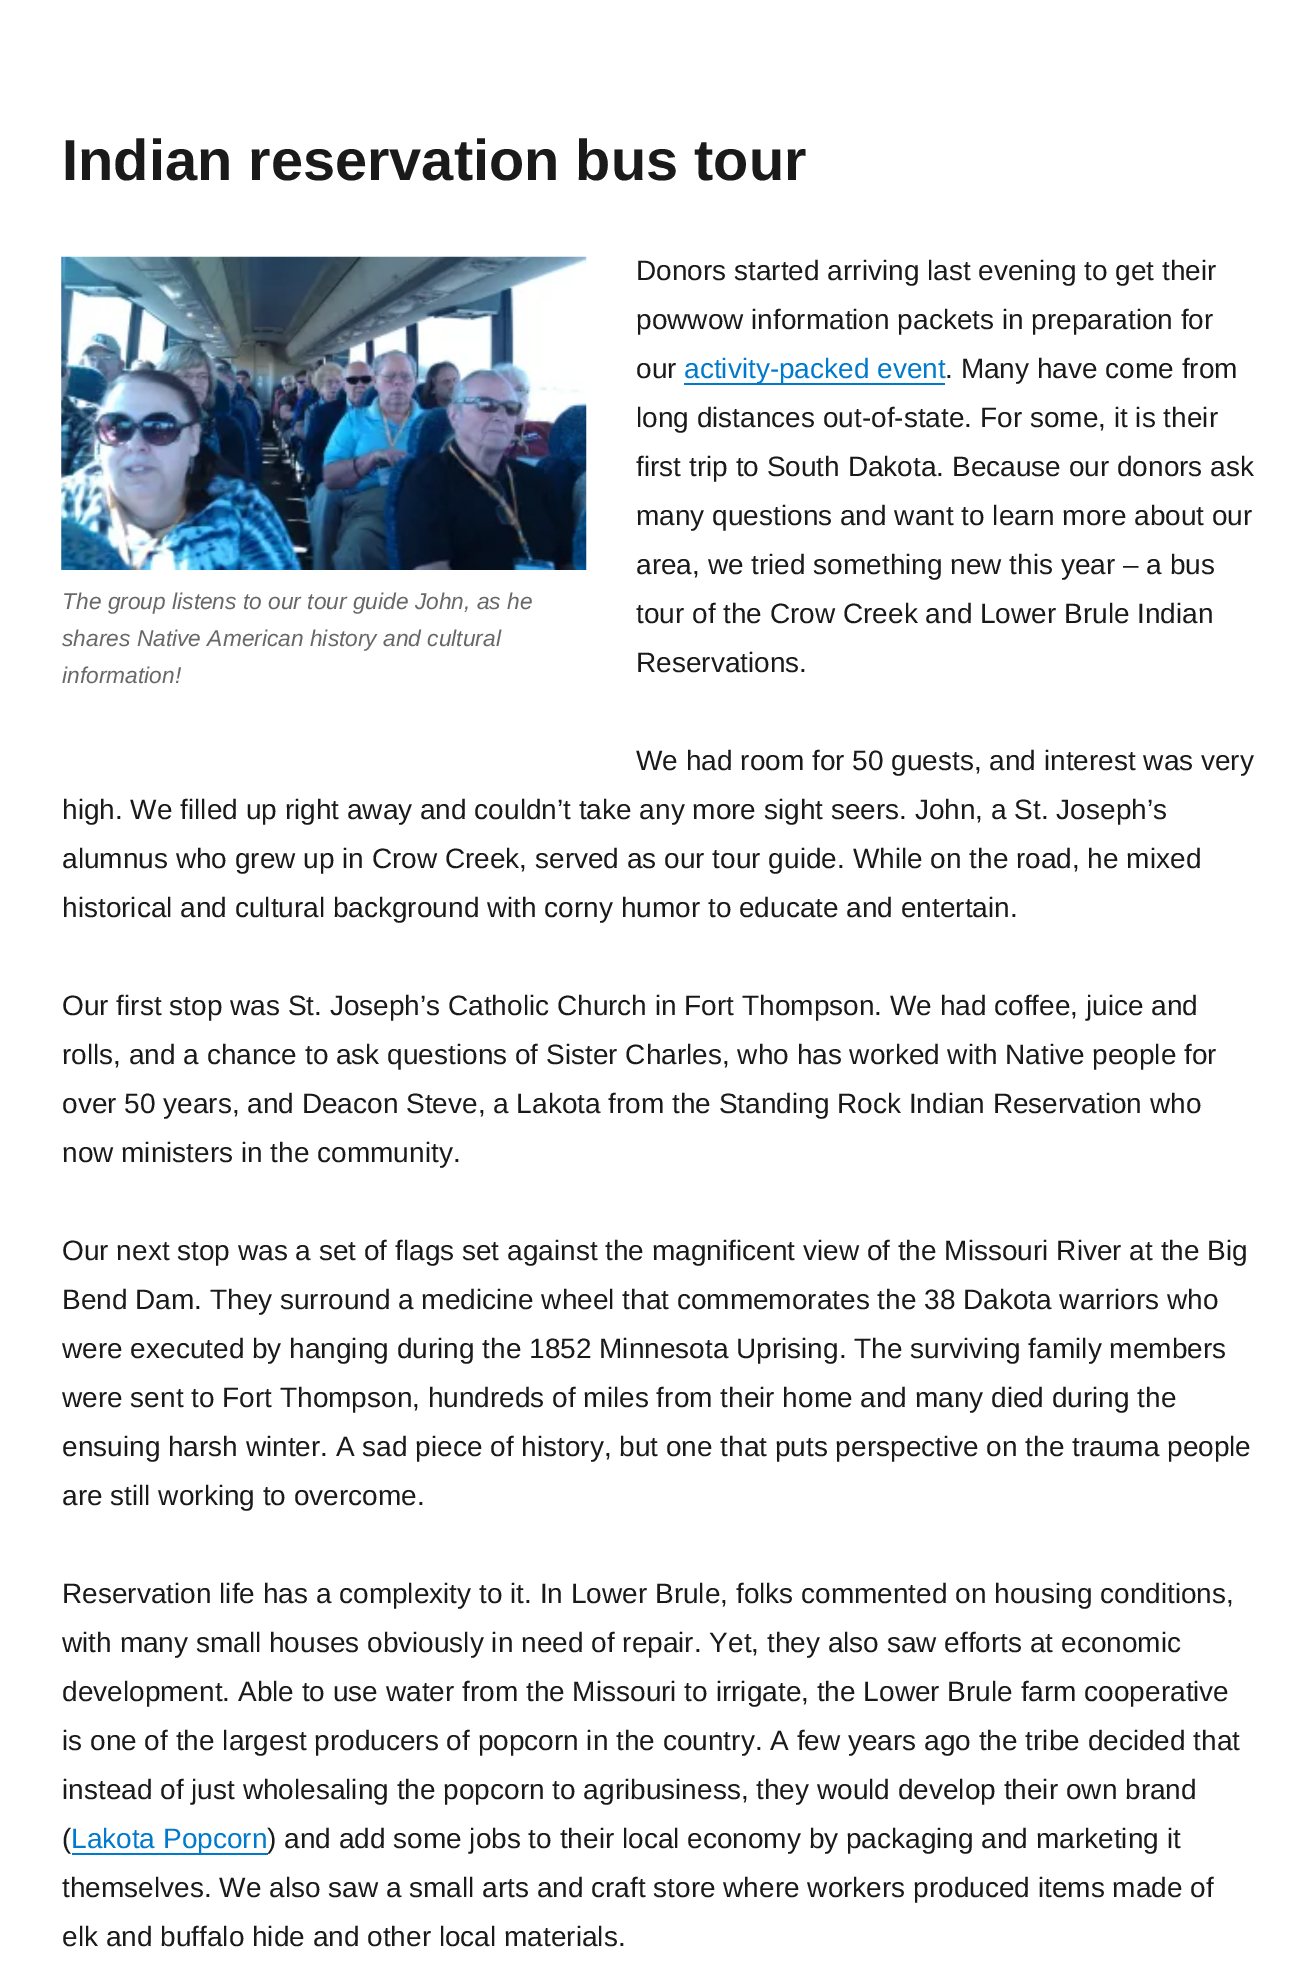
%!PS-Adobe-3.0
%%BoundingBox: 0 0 1315 1978
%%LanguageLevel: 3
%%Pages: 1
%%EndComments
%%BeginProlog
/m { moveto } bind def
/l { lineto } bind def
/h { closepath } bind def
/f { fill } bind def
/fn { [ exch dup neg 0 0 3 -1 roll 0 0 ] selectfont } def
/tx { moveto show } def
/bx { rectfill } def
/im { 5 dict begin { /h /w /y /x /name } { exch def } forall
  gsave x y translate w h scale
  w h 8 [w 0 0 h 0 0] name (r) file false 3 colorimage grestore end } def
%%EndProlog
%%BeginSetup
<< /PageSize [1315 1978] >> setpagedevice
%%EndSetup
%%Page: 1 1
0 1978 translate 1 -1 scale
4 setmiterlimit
1 setgray
0 0 1315 1978 bx
/LiberationSans-Bold 57.75 fn
0.102 setgray
(Indian reservation bus tour) 62 180 tx
(image0.raw) 61 256 526 314 im
/LiberationSans-Italic 22.75 fn
0.408 setgray
(The group listens to our tour guide John, as he) 62 609 tx
(shares Native American history and cultural) 62 646 tx
(information!) 62 683 tx
/LiberationSans-Regular 28 fn
0.102 setgray
(Donors started arriving last evening to get their) 636 280 tx
(powwow information packets in preparation for) 636 329 tx
(our) 636 378 tx
0 0.478 0.8 setrgbcolor
684 355 m 684 385 l 945 385 l 945 383 l 684 383 l h f
(activity-packed event) 684 378 tx
0.102 setgray
(. Many have come from) 945 378 tx
(long distances out-of-state. For some, it is their) 636 427 tx
(first trip to South Dakota. Because our donors ask) 636 476 tx
(many questions and want to learn more about our) 636 525 tx
(area, we tried something new this year – a bus) 636 574 tx
(tour of the Crow Creek and Lower Brule Indian) 636 623 tx
(Reservations.) 636 672 tx
(We had room for 50 guests, and interest was very) 636 770 tx
(high. We filled up right away and couldn’t take any more sight seers. John, a St. Joseph’s) 62 819 tx
(alumnus who grew up in Crow Creek, served as our tour guide. While on the road, he mixed) 62 868 tx
(historical and cultural background with corny humor to educate and entertain.) 62 917 tx
(Our first stop was St. Joseph’s Catholic Church in Fort Thompson. We had coffee, juice and) 62 1015 tx
(rolls, and a chance to ask questions of Sister Charles, who has worked with Native people for) 62 1064 tx
(over 50 years, and Deacon Steve, a Lakota from the Standing Rock Indian Reservation who) 62 1113 tx
(now ministers in the community.) 62 1162 tx
(Our next stop was a set of flags set against the magnificent view of the Missouri River at the Big) 62 1260 tx
(Bend Dam. They surround a medicine wheel that commemorates the 38 Dakota warriors who) 62 1309 tx
(were executed by hanging during the 1852 Minnesota Uprising. The surviving family members) 62 1358 tx
(were sent to Fort Thompson, hundreds of miles from their home and many died during the) 62 1407 tx
(ensuing harsh winter. A sad piece of history, but one that puts perspective on the trauma people) 62 1456 tx
(are still working to overcome.) 62 1505 tx
(Reservation life has a complexity to it. In Lower Brule, folks commented on housing conditions,) 62 1603 tx
(with many small houses obviously in need of repair. Yet, they also saw efforts at economic) 62 1652 tx
(development. Able to use water from the Missouri to irrigate, the Lower Brule farm cooperative) 62 1701 tx
(is one of the largest producers of popcorn in the country. A few years ago the tribe decided that) 62 1750 tx
(instead of just wholesaling the popcorn to agribusiness, they would develop their own brand) 62 1799 tx
(\() 62 1848 tx
0 0.478 0.8 setrgbcolor
72 1853 m 72 1855 l 268 1855 l 268 1825 l 268 1853 l h f
(Lakota Popcorn) 71 1848 tx
0.102 setgray
(\) and add some jobs to their local economy by packaging and marketing it) 267 1848 tx
(themselves. We also saw a small arts and craft store where workers produced items made of) 62 1897 tx
(elk and buffalo hide and other local materials.) 62 1946 tx
showpage
%%EOF
